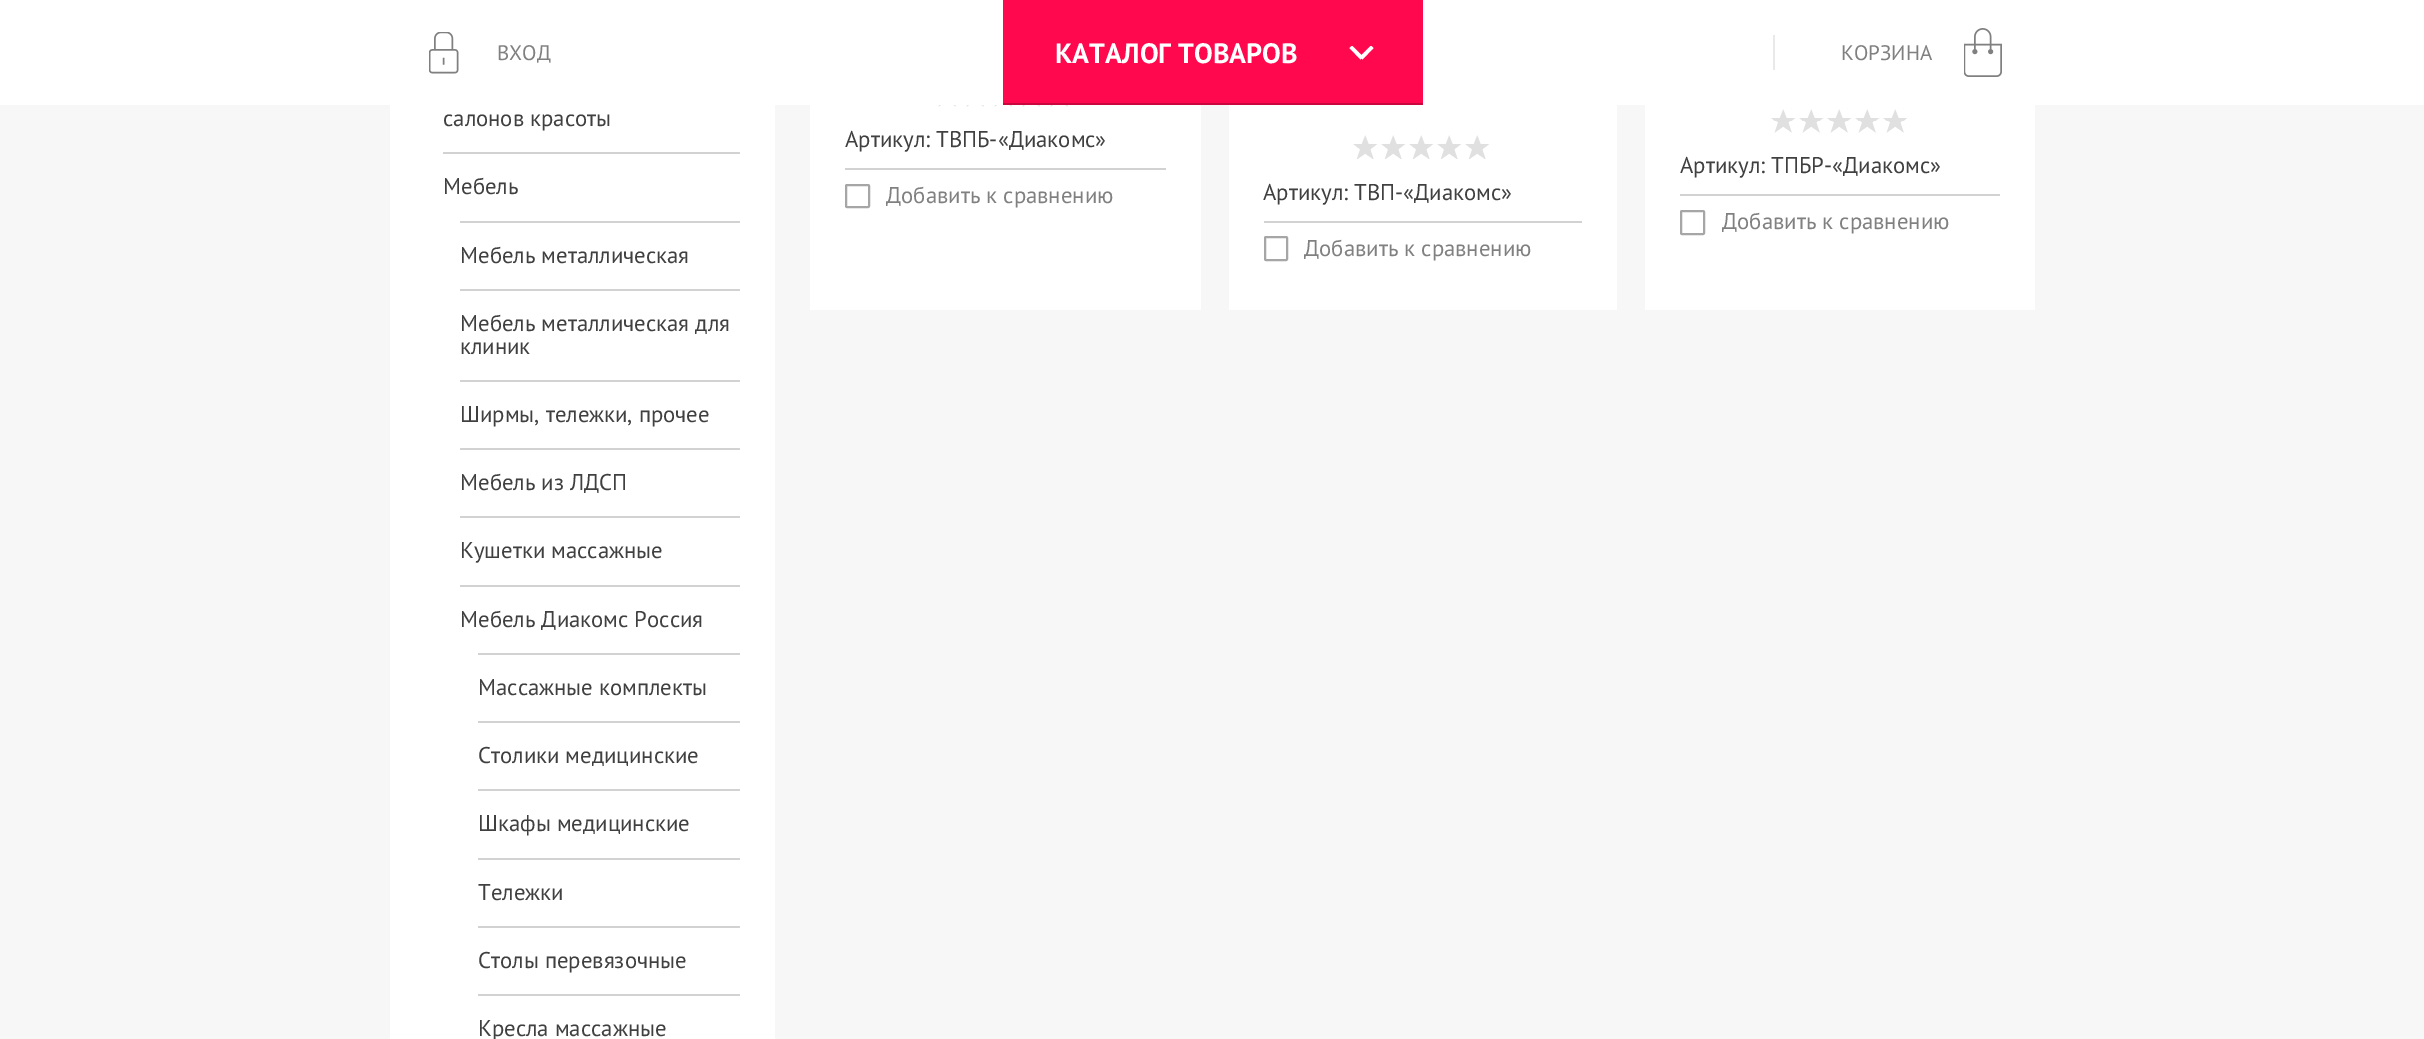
%!PS-Adobe-3.0
%%BoundingBox: 0 0 2424 1039
%%LanguageLevel: 3
%%Pages: 1
%%EndComments
%%BeginProlog
/m { moveto } bind def
/l { lineto } bind def
/h { closepath } bind def
/S { stroke } bind def
/q { gsave } bind def
/Q { grestore } bind def
/w { setlinewidth } bind def
/fn { [ exch dup neg 0 0 3 -1 roll 0 0 ] selectfont } def
/tx { moveto show } def
/bx { rectfill } def
/rr { 5 dict begin { /r /h /w /y /x } { exch def } forall
  x r add y moveto x w add y 2 copy h add r arct x w add y h add x 1 index r arct
  x y h add x y r arct x y 2 copy exch w add exch r arct closepath end } def
/im { 5 dict begin { /h /w /y /x /name } { exch def } forall
  gsave x y translate w h scale
  w h 8 [w 0 0 h 0 0] name (r) file false 3 colorimage grestore end } def
%%EndProlog
%%BeginSetup
<< /PageSize [2424 1039] >> setpagedevice
%%EndSetup
%%Page: 1 1
0 1039 translate 1 -1 scale
4 setmiterlimit
0.969 setgray
0 0 2424 1039 bx
1 setgray
0 0 2424 105 bx
(image0.raw) 429 32 30 42 im
/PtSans-Regular 21 fn
0.502 setgray
(ВХОД) 497 60 tx
1 0.031 0.306 setrgbcolor
1003 0 420 103 bx
0.8 0.024 0.243 setrgbcolor
1003 103 420 2 bx
/PtSans-Bold 28 fn
1 setgray
(КАТАЛОГ ТОВАРОВ) 1055 63 tx
q
1349 46 25 14 rectclip
1373.5 48 m 1362.5 59.5 l 1361.5 58.5 l 1360.5 59.5 l 1349.5 48 l 1352 45.5 l 1361.5 55 l 1371 45.5 l h eofill
Q
0.914 setgray
1773 35 2 35 bx
/PtSans-Regular 21 fn
0.502 setgray
(КОРЗИНА) 1841 60 tx
(image1.raw) 1964 28 38 49 im
1 setgray
390 105 385 934 bx
/PtSans-Regular 22.75 fn
0.251 setgray
(салонов красоты) 443 126 tx
0.824 setgray
443 152 297 2 bx
0.251 setgray
(Мебель) 443 194 tx
0.824 setgray
460 221 280 2 bx
0.251 setgray
(Мебель металлическая) 460 263 tx
0.824 setgray
460 289 280 2 bx
0.251 setgray
(Мебель металлическая для) 460 331 tx
(клиник) 460 354 tx
0.824 setgray
460 380 280 2 bx
0.251 setgray
(Ширмы, тележки, прочее) 460 422 tx
0.824 setgray
460 448 280 2 bx
0.251 setgray
(Мебель из ЛДСП) 460 490 tx
0.824 setgray
460 516 280 2 bx
0.251 setgray
(Кушетки массажные) 460 558 tx
0.824 setgray
460 585 280 2 bx
0.251 setgray
(Мебель Диакомс Россия) 460 627 tx
0.824 setgray
478 653 262 2 bx
0.251 setgray
(Массажные комплекты) 478 695 tx
0.824 setgray
478 721 262 2 bx
0.251 setgray
(Столики медицинские) 478 763 tx
0.824 setgray
478 789 262 2 bx
0.251 setgray
(Шкафы медицинские) 478 831 tx
0.824 setgray
478 858 262 2 bx
0.251 setgray
(Тележки) 478 900 tx
0.824 setgray
478 926 262 2 bx
0.251 setgray
(Столы перевязочные) 478 968 tx
0.824 setgray
478 994 262 2 bx
0.251 setgray
(Кресла массажные) 478 1036 tx
1 setgray
810 105 391 205 bx
(image2.raw) 938 105 130 2 im
0.824 setgray
845 168 321 2 bx
0.251 setgray
(Артикул: ТВПБ-«Диакомс») 845 147 tx
0.651 setgray
2 w
846 185 23 22 1 rr S
0.502 setgray
(Добавить к сравнению) 886 203 tx
1 setgray
1229 105 388 205 bx
(image3.raw) 1353 135 136 25 im
0.824 setgray
1264 221 318 2 bx
0.251 setgray
(Артикул: ТВП-«Диакомс») 1263 200 tx
0.651 setgray
1265 237 22 23 1 rr S
0.502 setgray
(Добавить к сравнению) 1304 256 tx
1 setgray
1645 105 390 205 bx
(image4.raw) 1771 108 136 25 im
0.824 setgray
1680 194 320 2 bx
0.251 setgray
(Артикул: ТПБР-«Диакомс») 1680 173 tx
0.651 setgray
1681 211 23 23 1 rr S
0.502 setgray
(Добавить к сравнению) 1722 229 tx
showpage
%%EOF
